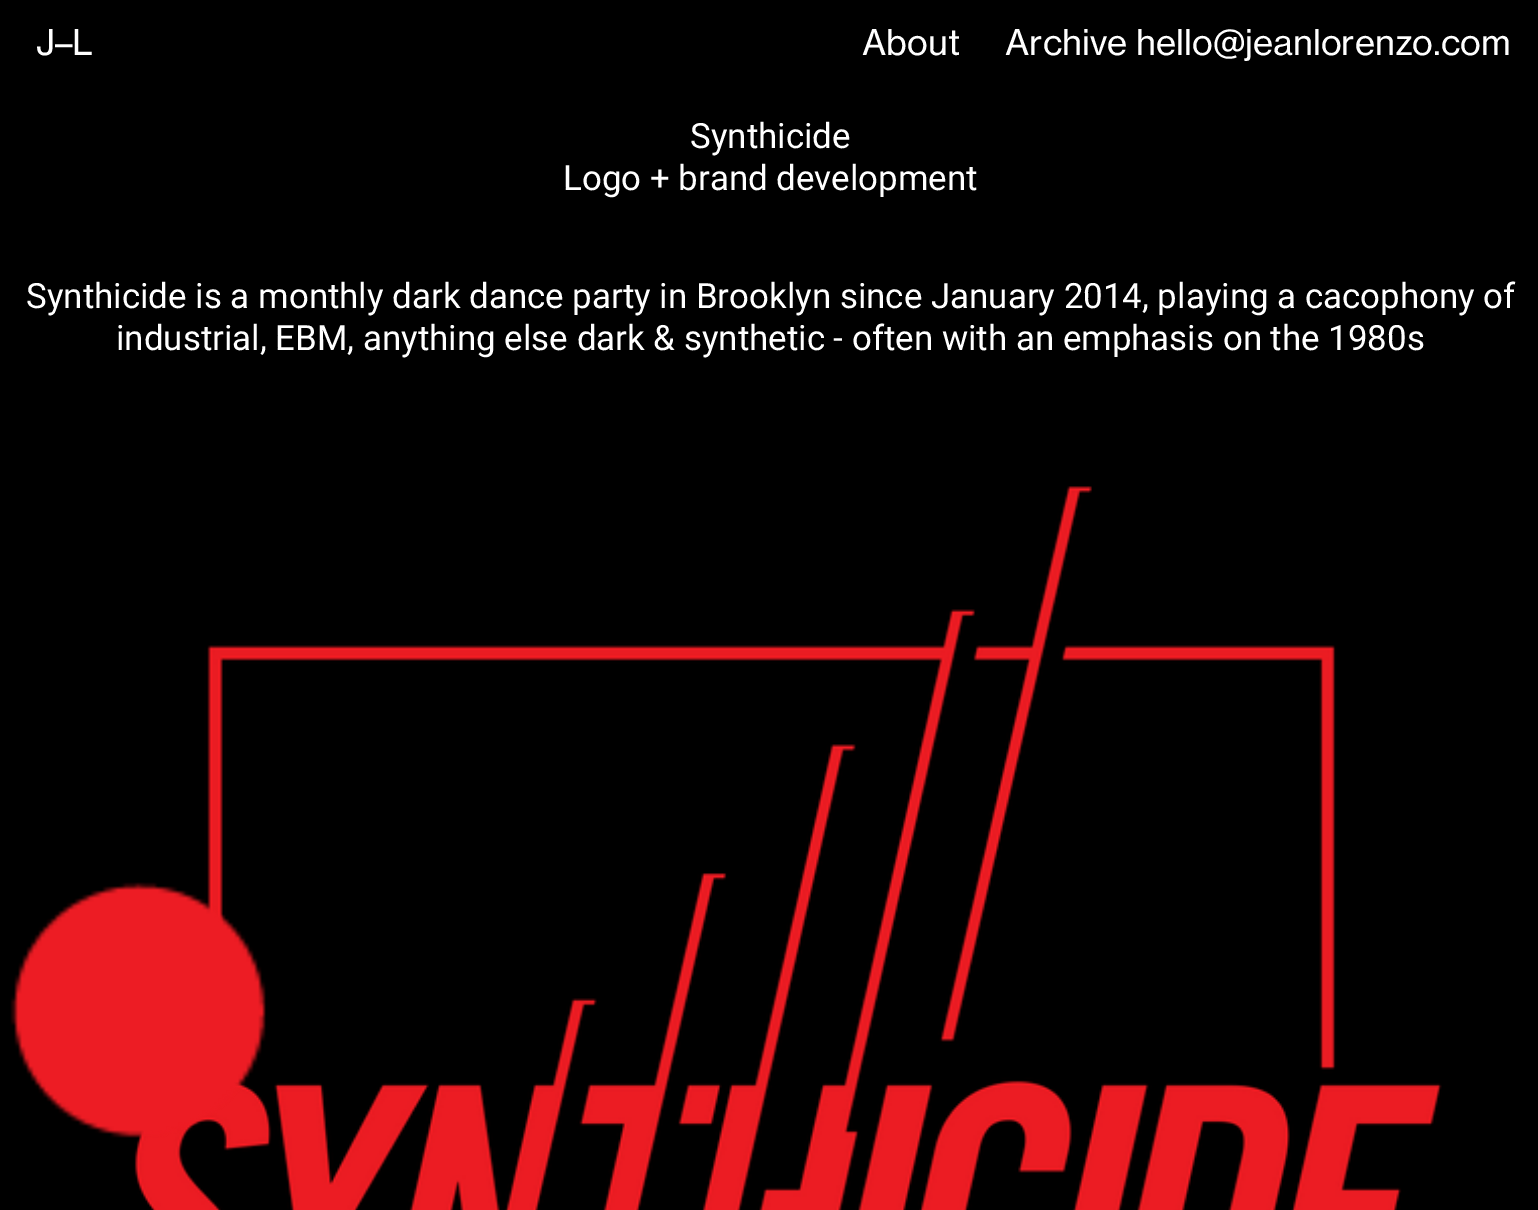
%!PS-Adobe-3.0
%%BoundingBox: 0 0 1538 1210
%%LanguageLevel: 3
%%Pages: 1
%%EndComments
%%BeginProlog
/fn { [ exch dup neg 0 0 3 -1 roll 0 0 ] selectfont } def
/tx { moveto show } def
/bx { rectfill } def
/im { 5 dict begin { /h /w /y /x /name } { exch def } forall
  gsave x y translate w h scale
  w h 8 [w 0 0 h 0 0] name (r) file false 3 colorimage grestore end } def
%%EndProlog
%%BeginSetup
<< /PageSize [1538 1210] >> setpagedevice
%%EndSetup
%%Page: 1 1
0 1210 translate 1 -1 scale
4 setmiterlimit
0 setgray
0 0 1538 1210 bx
/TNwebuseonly-Regular 34.9 fn
1 setgray
(J–L) 36 55 tx
(About) 862 55 tx
(Archive) 1005 55 tx
(hello@jeanlorenzo.com) 1136 55 tx
/Roboto-Regular 34.9 fn
(Synthicide) 690 148 tx
(Logo + brand development) 563 190 tx
(Synthicide is a monthly dark dance party in Brooklyn since January 2014, playing a cacophony of) 26 308 tx
(industrial, EBM, anything else dark & synthetic - often with an emphasis on the 1980s) 116 350 tx
(image0.raw) 134 486 1308 724 im
(image1.raw) 10 882 256 256 im
showpage
%%EOF
